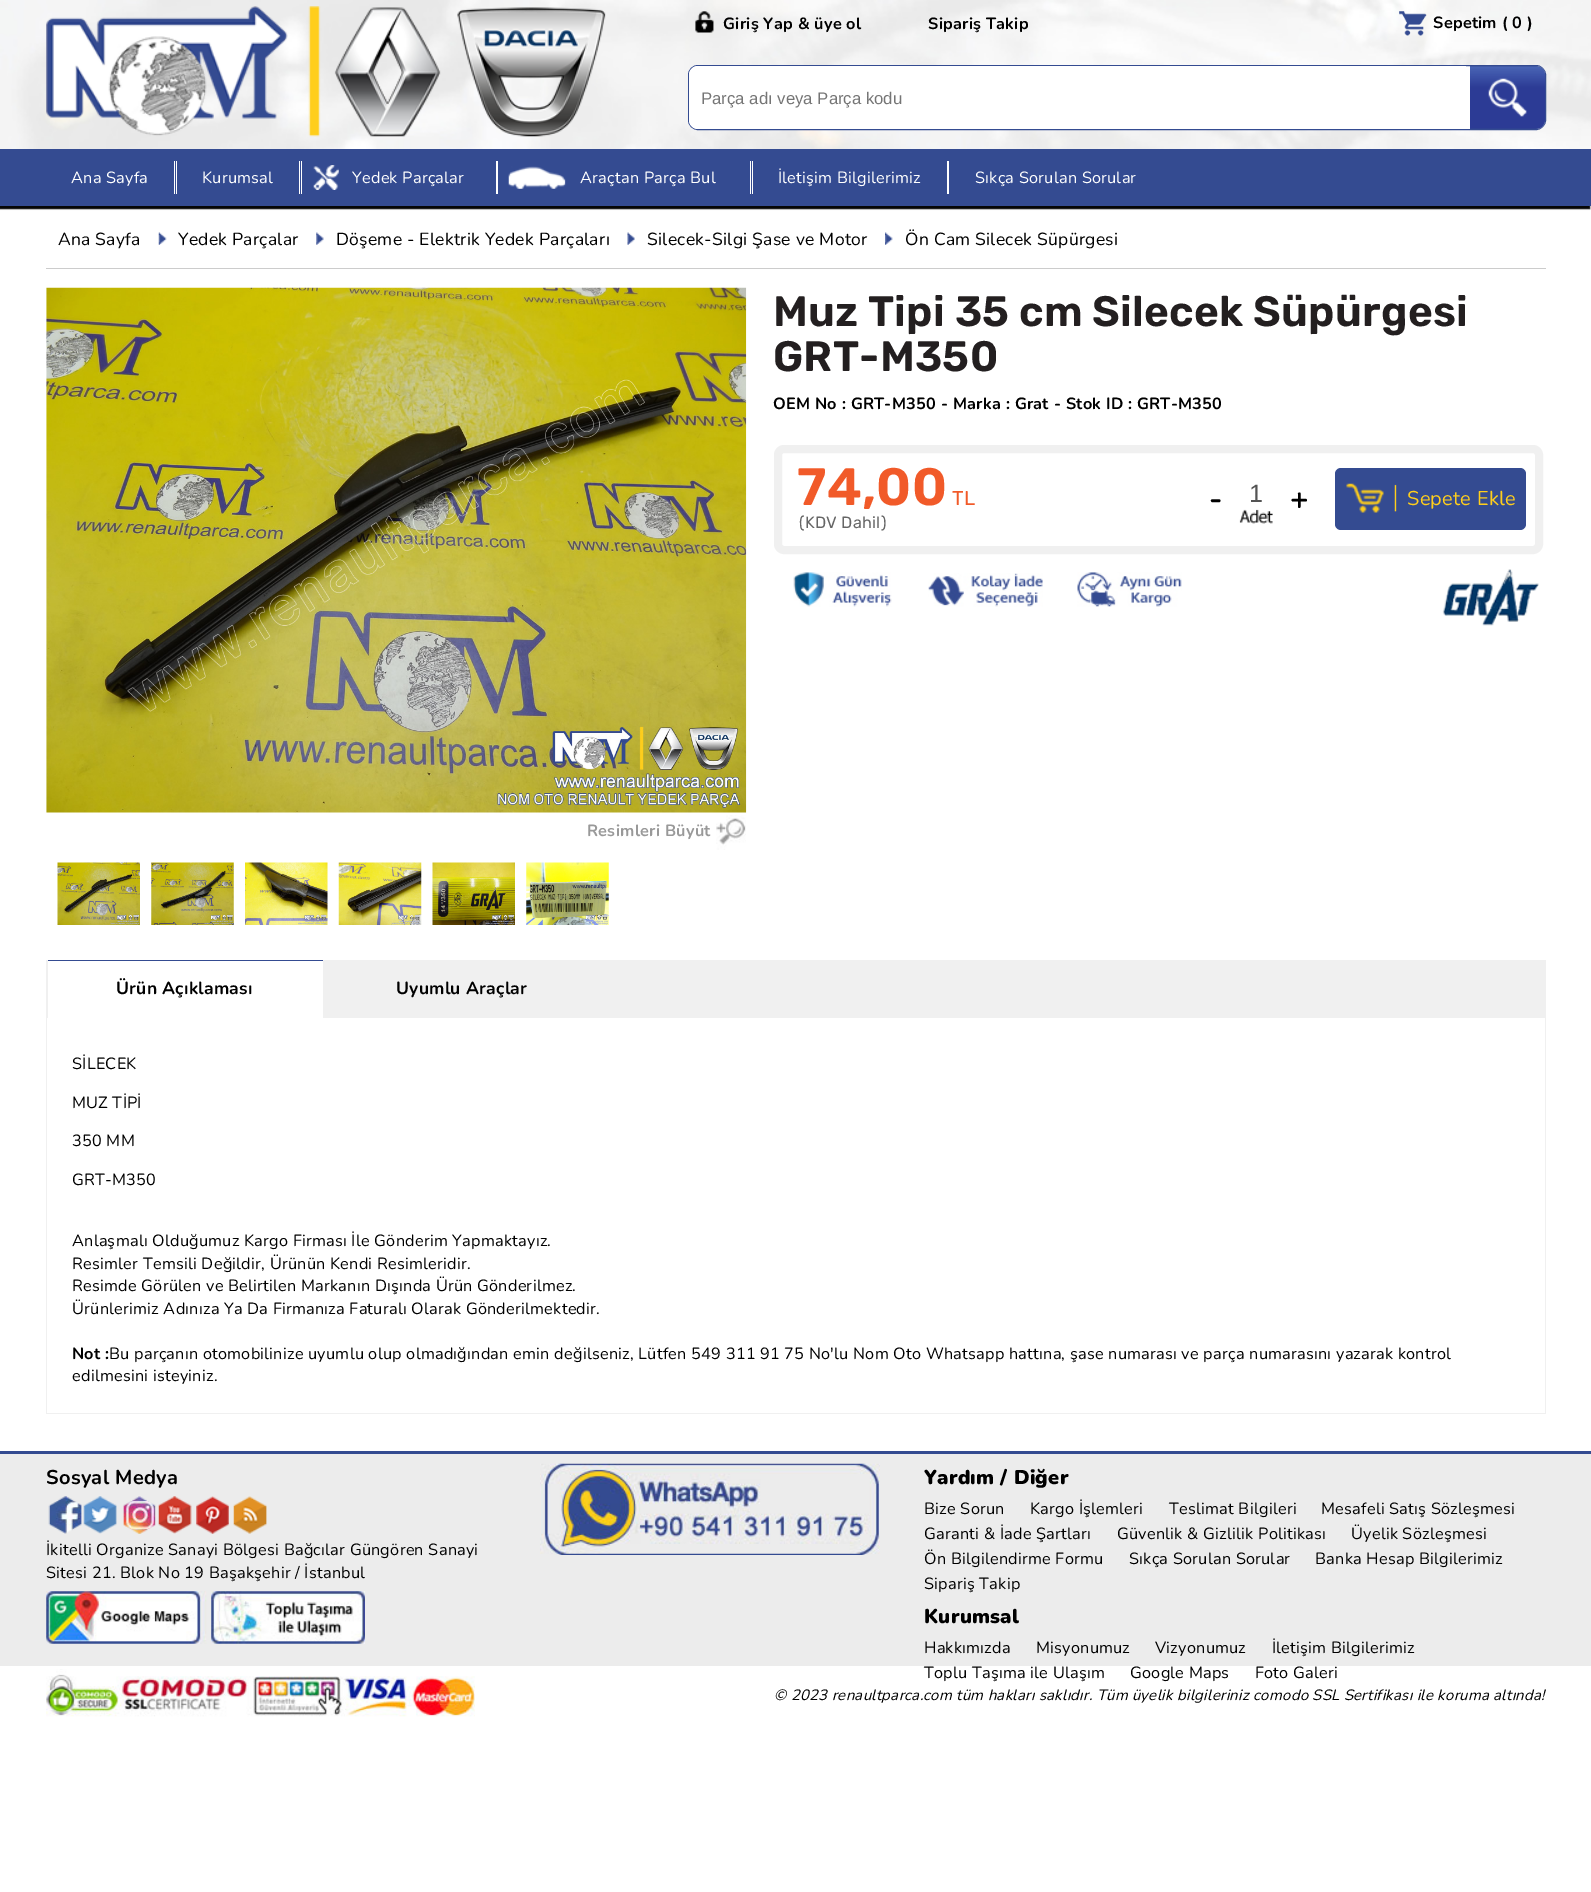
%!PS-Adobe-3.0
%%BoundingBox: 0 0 1591 1892
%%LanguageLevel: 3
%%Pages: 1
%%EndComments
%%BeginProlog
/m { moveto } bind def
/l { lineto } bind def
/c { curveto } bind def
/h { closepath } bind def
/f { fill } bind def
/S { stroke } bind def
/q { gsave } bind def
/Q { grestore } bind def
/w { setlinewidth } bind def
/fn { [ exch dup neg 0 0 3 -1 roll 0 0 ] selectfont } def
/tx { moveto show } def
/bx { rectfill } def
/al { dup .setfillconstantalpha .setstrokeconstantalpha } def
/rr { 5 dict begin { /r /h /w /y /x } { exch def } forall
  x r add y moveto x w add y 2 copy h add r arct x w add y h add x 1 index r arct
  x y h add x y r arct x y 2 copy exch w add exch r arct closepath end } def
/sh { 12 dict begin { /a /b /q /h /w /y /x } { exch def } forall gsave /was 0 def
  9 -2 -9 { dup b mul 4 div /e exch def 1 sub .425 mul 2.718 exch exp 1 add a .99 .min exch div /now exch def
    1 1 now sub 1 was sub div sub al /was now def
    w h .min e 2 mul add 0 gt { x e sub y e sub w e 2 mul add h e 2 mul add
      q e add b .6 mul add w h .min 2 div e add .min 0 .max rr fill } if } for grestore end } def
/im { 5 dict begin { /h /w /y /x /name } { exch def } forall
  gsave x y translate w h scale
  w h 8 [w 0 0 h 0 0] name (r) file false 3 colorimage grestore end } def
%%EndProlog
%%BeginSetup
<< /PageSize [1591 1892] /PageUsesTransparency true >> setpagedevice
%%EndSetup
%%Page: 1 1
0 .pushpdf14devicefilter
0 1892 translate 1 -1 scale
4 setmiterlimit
1 setgray
0 0 1591 1892 bx
(image0.raw) 0 0 1591 207 im
(image1.raw) 695 11 19 22 im
/Nunito-Bold 16.25 fn
0 setgray
723 29 m 0.25 0 (Giriş Yap & üye ol) ashow
928 29 m 0.25 0 (Sipariş Takip) ashow
(image2.raw) 1399 11 28 25 im
1433 28 m 0.25 0 (Sepetim \( 0 \)) ashow
(image3.raw) 46 6 560 131 im
1 setgray
688.5 65.5 857 64 9.5 rr q f Q
0.204 0.294 0.569 setrgbcolor
S
1 setgray
698 66 m 1466 66 l 1466 129 l 698 129 l 693 129 689 125 689 120 c 689 75 l 689 70 693 66 698 66 c h f
/LiberationSans-Regular 16.75 fn
0.459 setgray
(Parça adı veya Parça kodu) 701 104 tx
0.204 0.294 0.569 setrgbcolor
1470 66 m 1536 66 l 1541 66 1545 70 1545 75 c 1545 120 l 1545 125 1541 129 1536 129 c 1470 129 l h f
(image4.raw) 1470 66 75 63 im
0 setgray
-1 151 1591 58 0 0.5 1 sh
0.204 0.294 0.569 setrgbcolor
0 149 1591 57 bx
/Nunito-Regular 16.25 fn
1 setgray
71 183 m 0.25 0 (Ana Sayfa) ashow
174 161 3 33 bx
0.204 0.294 0.569 setrgbcolor
175 161 1 33 bx
1 setgray
202 183 m 0.25 0 (Kurumsal) ashow
299 161 3 33 bx
0.204 0.294 0.569 setrgbcolor
300 161 1 33 bx
(image5.raw) 313 165 26 25 im
1 setgray
352 183 m 0.25 0 (Yedek Parçalar) ashow
496 161 2 33 bx
(image6.raw) 508 166 58 23 im
580 183 m 0.25 0 (Araçtan Parça Bul) ashow
750 161 3 33 bx
0.204 0.294 0.569 setrgbcolor
751 161 1 33 bx
1 setgray
778 183 m 0.25 0 (İletişim Bilgilerimiz) ashow
947 161 2 33 bx
975 183 m 0.25 0 (Sıkça Sorulan Sorular) ashow
0.8 setgray
46 268 1500 1 bx
/Nunito-Regular 17.5 fn
0 setgray
58 245 m 0.25 0 (Ana Sayfa) ashow
(image7.raw) 158 232 9 13 im
178 245 m 0.25 0 (Yedek Parçalar) ashow
(image8.raw) 316 232 8 13 im
336 245 m 0.25 0 (Döşeme - Elektrik Yedek Parçaları) ashow
(image9.raw) 627 232 8 13 im
647 245 m 0.25 0 (Silecek-Silgi Şase ve Motor) ashow
(image10.raw) 885 232 8 13 im
905 245 m 0.25 0 (Ön Cam Silecek Süpürgesi) ashow
/Rubik-SemiBold 42.5 fn
0.137 0.122 0.125 setrgbcolor
773 326 m 0.25 0 (Muz Tipi 35 cm Silecek Süpürgesi) ashow
773 371 m 0.25 0 (GRT-M350) ashow
/Nunito-Bold 16.25 fn
0 setgray
773 409 m 0.25 0 (OEM No : GRT-M350 - Marka : Grat - Stok ID : GRT-M350) ashow
0.941 setgray
8 w
778 449 761 101 6 rr S
/Rubik-SemiBold 52.5 fn
0.945 0.353 0.161 setrgbcolor
797 505 m 0.25 0 (74,00) ashow
/Rubik-Regular 20 fn
952 505 m 0.25 0 (TL) ashow
/Rubik-Regular 16.25 fn
0.4 setgray
799 528 m 0.25 0 (\(KDV Dahil\)) ashow
/Nunito-Bold 31 fn
0 setgray
1209 509 m 0.25 0 (-) ashow
(image11.raw) 1239 509 34 15 im
/LiberationSans-Regular 25 fn
0.329 setgray
(1) 1249 502 tx
/Nunito-Bold 31 fn
0 setgray
1290 509 m 0.25 0 (+) ashow
0.204 0.294 0.569 setrgbcolor
1335 468 191 62 6 rr f
(image12.raw) 1346 483 51 30 im
/Nunito-Regular 20 fn
1 0.808 0.11 setrgbcolor
1407 505 m 0.25 0 (Sepete Ekle) ashow
(image13.raw) 793 572 99 35 im
(image14.raw) 928 573 115 34 im
(image15.raw) 1077 572 105 35 im
(image16.raw) 1442 569 97 57 im
(image17.raw) 46 287 701 526 im
(image18.raw) 716 815 30 35 im
/Nunito-Bold 16.25 fn
0.6 setgray
587 836 m 0.25 0 (Resimleri Büyüt) ashow
(image19.raw) 57 862 83 63 im
(image20.raw) 151 862 83 63 im
(image21.raw) 245 862 83 63 im
(image22.raw) 338 862 84 63 im
(image23.raw) 432 862 83 63 im
(image24.raw) 526 862 83 63 im
0.941 setgray
46 960 1500 58 bx
1 setgray
48 961 275 57 bx
0.204 0.294 0.569 setrgbcolor
48 960 275 1 bx
/Nunito-Bold 17.5 fn
0 setgray
116 994 m 0.25 0 (Ürün Açıklaması) ashow
396 994 m 0.25 0 (Uyumlu Araçlar) ashow
0.941 setgray
1545 1018 1 396 bx
46 1413 1500 1 bx
46 1018 1 396 bx
/Nunito-Regular 16.25 fn
0 setgray
72 1069 m 0.25 0 (SİLECEK) ashow
72 1108 m 0.25 0 (MUZ TİPİ) ashow
72 1146 m 0.25 0 (350 MM) ashow
72 1185 m 0.25 0 (GRT-M350) ashow
72 1246 m 0.25 0 (Anlaşmalı Olduğumuz Kargo Firması İle Gönderim Yapmaktayız.) ashow
72 1269 m 0.25 0 (Resimler Temsili Değildir, Ürünün Kendi Resimleridir.) ashow
72 1291 m 0.25 0 (Resimde Görülen ve Belirtilen Markanın Dışında Ürün Gönderilmez.) ashow
72 1314 m 0.25 0 (Ürünlerimiz Adınıza Ya Da Firmanıza Faturalı Olarak Gönderilmektedir.) ashow
/Nunito-Bold 16.25 fn
72 1359 m 0.25 0 (Not :) ashow
/Nunito-Regular 16.25 fn
109 1359 m 0.25 0 (Bu parçanın otomobilinize uyumlu olup olmadığından emin değilseniz, Lütfen 549 311 91 75 No'lu Nom Oto Whatsapp hattına, şase numarası ve parça numarasını yazarak kontrol) ashow
72 1381 m 0.25 0 (edilmesini isteyiniz.) ashow
0.925 setgray
0 1454 1591 212 bx
0.204 0.294 0.569 setrgbcolor
0 1451 1591 3 bx
/Nunito-Bold 20 fn
0 setgray
46 1484 m 0.25 0 (Sosyal Medya) ashow
(image25.raw) 48 1496 34 38 im
(image26.raw) 83 1496 34 38 im
(image27.raw) 123 1496 33 38 im
(image28.raw) 158 1496 34 38 im
(image29.raw) 196 1496 33 38 im
(image30.raw) 233 1496 34 38 im
/Nunito-Regular 16.25 fn
46 1555 m 0.25 0 (İkitelli Organize Sanayi Bölgesi Bağcılar Güngören Sanayi) ashow
46 1578 m 0.25 0 (Sitesi 21. Blok No 19 Başakşehir / İstanbul) ashow
(image31.raw) 46 1591 161 53 im
(image32.raw) 211 1591 154 53 im
(image33.raw) 540 1463 340 92 im
/Nunito-Black 20 fn
924 1484 m 0.25 0 (Yardım / Diğer) ashow
/Nunito-Regular 16.25 fn
924 1514 m 0.25 0 (Bize Sorun) ashow
1030 1514 m 0.25 0 (Kargo İşlemleri) ashow
1169 1514 m 0.25 0 (Teslimat Bilgileri) ashow
1321 1514 m 0.25 0 (Mesafeli Satış Sözleşmesi) ashow
924 1539 m 0.25 0 (Garanti & İade Şartları) ashow
1117 1539 m 0.25 0 (Güvenlik & Gizlilik Politikası) ashow
1351 1539 m 0.25 0 (Üyelik Sözleşmesi) ashow
924 1564 m 0.25 0 (Ön Bilgilendirme Formu) ashow
1129 1564 m 0.25 0 (Sıkça Sorulan Sorular) ashow
1315 1564 m 0.25 0 (Banka Hesap Bilgilerimiz) ashow
924 1589 m 0.25 0 (Sipariş Takip) ashow
/Nunito-Black 20 fn
924 1623 m 0.25 0 (Kurumsal) ashow
/Nunito-Regular 16.25 fn
924 1653 m 0.25 0 (Hakkımızda) ashow
1036 1653 m 0.25 0 (Misyonumuz) ashow
1155 1653 m 0.25 0 (Vizyonumuz) ashow
1272 1653 m 0.25 0 (İletişim Bilgilerimiz) ashow
924 1678 m 0.25 0 (Toplu Taşıma ile Ulaşım) ashow
1130 1678 m 0.25 0 (Google Maps) ashow
1255 1678 m 0.25 0 (Foto Galeri) ashow
(image34.raw) 46 1669 429 48 im
/Nunito-Italic 15 fn
774 1700 m 0.25 0 (© 2023 renaultparca.com tüm hakları saklıdır. Tüm üyelik bilgileriniz comodo SSL Sertifikası ile koruma altında!) ashow
.poppdf14devicefilter showpage
%%EOF
